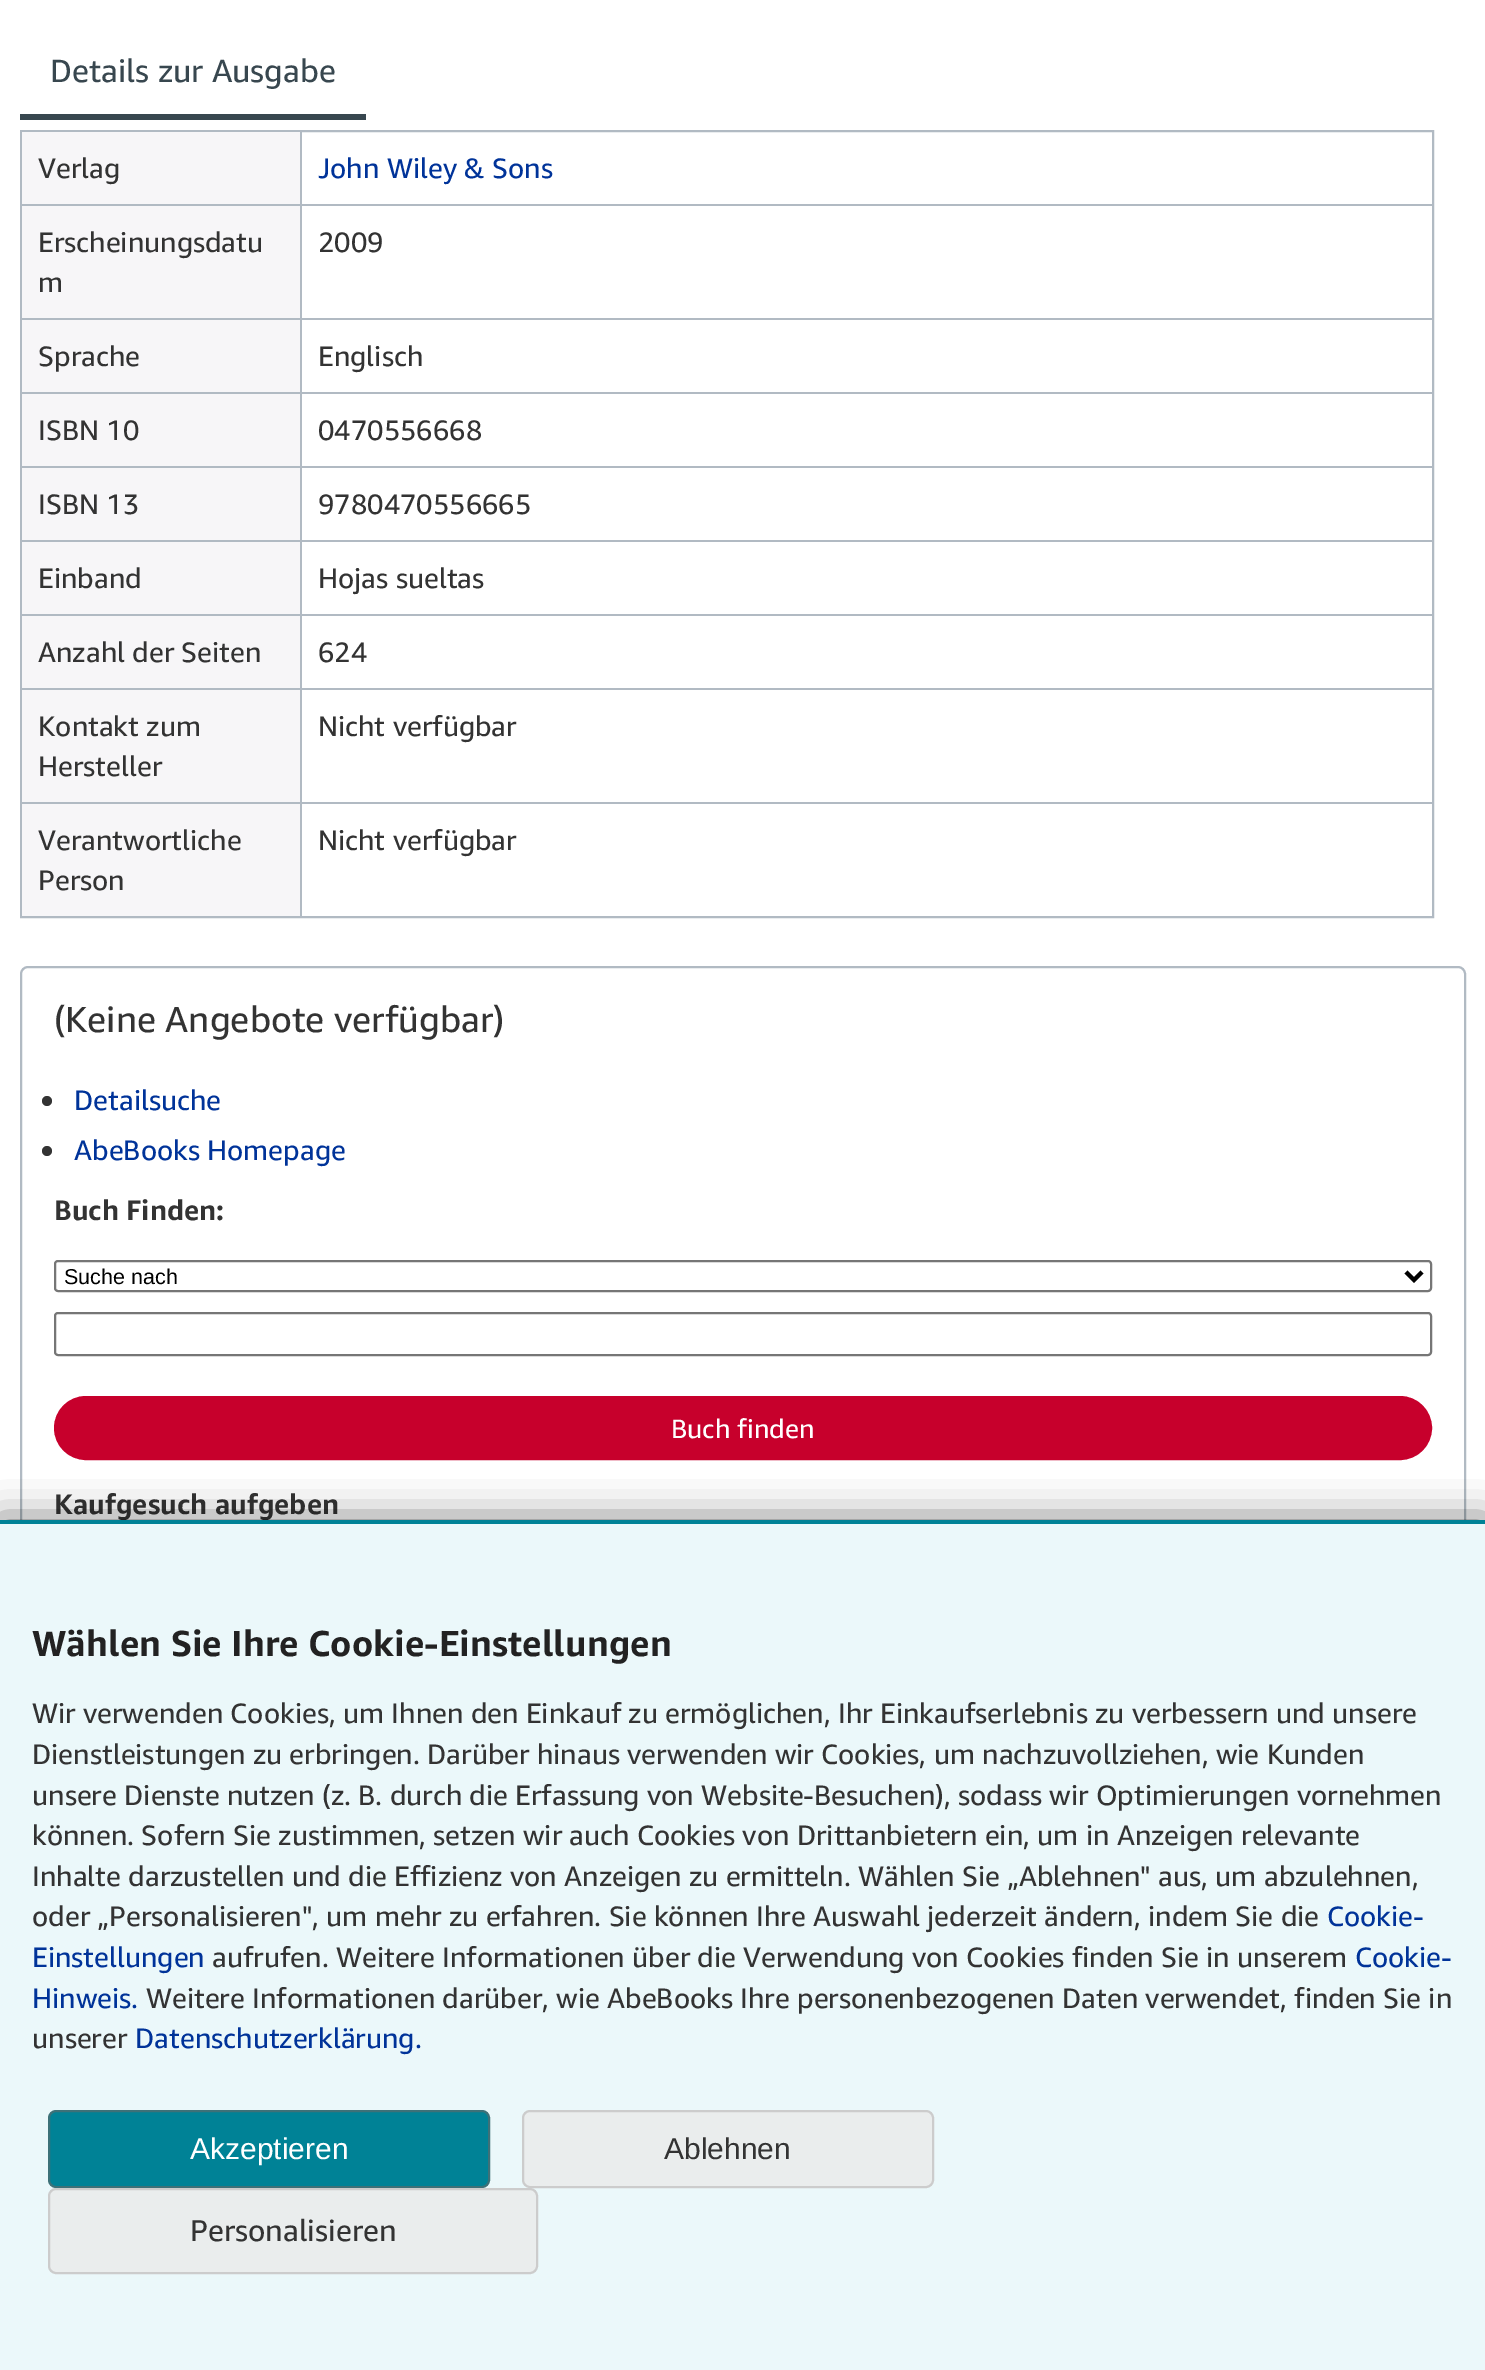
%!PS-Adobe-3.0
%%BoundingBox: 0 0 1485 2370
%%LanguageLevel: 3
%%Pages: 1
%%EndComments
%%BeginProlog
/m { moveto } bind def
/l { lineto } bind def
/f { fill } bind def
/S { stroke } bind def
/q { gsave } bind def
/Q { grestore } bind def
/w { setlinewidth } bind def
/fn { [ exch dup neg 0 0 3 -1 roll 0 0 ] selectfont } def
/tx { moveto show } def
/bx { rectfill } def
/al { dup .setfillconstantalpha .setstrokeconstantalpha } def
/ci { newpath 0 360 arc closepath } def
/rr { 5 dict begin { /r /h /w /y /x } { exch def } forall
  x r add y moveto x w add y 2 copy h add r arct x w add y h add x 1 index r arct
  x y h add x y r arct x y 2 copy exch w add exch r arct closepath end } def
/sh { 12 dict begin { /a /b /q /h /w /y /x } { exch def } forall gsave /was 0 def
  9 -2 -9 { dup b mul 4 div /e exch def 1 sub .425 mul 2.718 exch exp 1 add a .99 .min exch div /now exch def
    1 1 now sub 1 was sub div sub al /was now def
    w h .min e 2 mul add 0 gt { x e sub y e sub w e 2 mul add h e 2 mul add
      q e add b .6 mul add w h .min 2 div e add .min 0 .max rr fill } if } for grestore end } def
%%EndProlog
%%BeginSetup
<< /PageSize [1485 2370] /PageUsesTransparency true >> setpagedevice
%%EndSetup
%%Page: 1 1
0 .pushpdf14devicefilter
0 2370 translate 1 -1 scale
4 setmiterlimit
1 setgray
0 0 1485 2370 bx
0.22 0.278 0.31 setrgbcolor
20 114 346 6 bx
/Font-Regular 32 fn
(Details zur Ausgabe) 50 82 tx
0.694 0.729 0.765 setrgbcolor
2 w
21 131 1412 786 rectstroke
0.969 0.965 0.973 setrgbcolor
22 132 278 72 bx
0.694 0.729 0.765 setrgbcolor
300 132 2 784 bx
22 204 1410 2 bx
/Font-Regular 28 fn
0.2 setgray
(Verlag) 38 178 tx
0 0.2 0.6 setrgbcolor
(John Wiley & Sons) 318 178 tx
0.969 0.965 0.973 setrgbcolor
22 206 278 112 bx
0.694 0.729 0.765 setrgbcolor
22 318 1410 2 bx
0.2 setgray
(Erscheinungsdatu) 38 252 tx
(m) 38 292 tx
(2009) 318 252 tx
0.969 0.965 0.973 setrgbcolor
22 320 278 72 bx
0.694 0.729 0.765 setrgbcolor
22 392 1410 2 bx
0.2 setgray
(Sprache) 38 366 tx
(Englisch) 318 366 tx
0.969 0.965 0.973 setrgbcolor
22 394 278 72 bx
0.694 0.729 0.765 setrgbcolor
22 466 1410 2 bx
0.2 setgray
(ISBN 10) 38 440 tx
(0470556668) 318 440 tx
0.969 0.965 0.973 setrgbcolor
22 468 278 72 bx
0.694 0.729 0.765 setrgbcolor
22 540 1410 2 bx
0.2 setgray
(ISBN 13) 38 514 tx
(9780470556665) 318 514 tx
0.969 0.965 0.973 setrgbcolor
22 542 278 72 bx
0.694 0.729 0.765 setrgbcolor
22 614 1410 2 bx
0.2 setgray
(Einband) 38 588 tx
(Hojas sueltas) 318 588 tx
0.969 0.965 0.973 setrgbcolor
22 616 278 72 bx
0.694 0.729 0.765 setrgbcolor
22 688 1410 2 bx
0.2 setgray
(Anzahl der Seiten) 38 662 tx
(624) 318 662 tx
0.969 0.965 0.973 setrgbcolor
22 690 278 112 bx
0.694 0.729 0.765 setrgbcolor
22 802 1410 2 bx
0.2 setgray
(Kontakt zum) 38 736 tx
(Hersteller) 38 776 tx
(Nicht verfügbar) 318 736 tx
0.969 0.965 0.973 setrgbcolor
22 804 278 112 bx
0.2 setgray
(Verantwortliche) 38 850 tx
(Person) 38 890 tx
(Nicht verfügbar) 318 850 tx
0.694 0.729 0.765 setrgbcolor
21 967 1444 762 7 rr S
/Font-Regular 36 fn
0.2 setgray
(\(Keine Angebote verfügbar\)) 54 1032 tx
47 1101 5 ci f
/Font-Regular 28 fn
0 0.2 0.6 setrgbcolor
(Detailsuche) 74 1110 tx
0.2 setgray
47 1151 5 ci f
0 0.2 0.6 setrgbcolor
(AbeBooks Homepage) 74 1160 tx
/Font-Bold 28 fn
0.2 setgray
(Buch Finden:) 54 1220 tx
0.463 setgray
55 1261 1376 30 3 rr S
0 setgray
4 w
1406 1272 m 1414 1280 l 1422 1272 l S
/LiberationSans-Regular 21.5 fn
(Suche nach) 64 1284 tx
0.463 setgray
2 w
55 1313 1376 42 3 rr S
0.78 0 0.173 setrgbcolor
55 1397 1376 62 31 rr q f Q
S
/Font-Regular 26.5 fn
1 setgray
(Buch finden) 671 1438 tx
/Font-Bold 28 fn
0.2 setgray
(Kaufgesuch aufgeben) 54 1514 tx
0 setgray
0 1524 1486 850 0 20 0.7 sh
0.922 0.973 0.98 setrgbcolor
0 1524 1485 846 bx
0 0.51 0.588 setrgbcolor
0 1520 1485 4 bx
/Font-Bold 36 fn
0.133 setgray
(Wählen Sie Ihre Cookie-Einstellungen) 32 1656 tx
/Font-Regular 28 fn
0.2 setgray
(Wir verwenden Cookies, um Ihnen den Einkauf zu ermöglichen, Ihr Einkaufserlebnis zu verbessern und unsere) 32 1723 tx
(Dienstleistungen zu erbringen. Darüber hinaus verwenden wir Cookies, um nachzuvollziehen, wie Kunden) 32 1764 tx
(unsere Dienste nutzen \(z. B. durch die Erfassung von Website-Besuchen\), sodass wir Optimierungen vornehmen) 32 1805 tx
(können. Sofern Sie zustimmen, setzen wir auch Cookies von Drittanbietern ein, um in Anzeigen relevante) 32 1845 tx
(Inhalte darzustellen und die Effizienz von Anzeigen zu ermitteln. Wählen Sie „Ablehnen" aus, um abzulehnen,) 32 1886 tx
(oder „Personalisieren", um mehr zu erfahren. Sie können Ihre Auswahl jederzeit ändern, indem Sie die) 32 1926 tx
0 0.2 0.6 setrgbcolor
(Cookie-) 1327 1926 tx
(Einstellungen) 32 1967 tx
0.2 setgray
(aufrufen. Weitere Informationen über die Verwendung von Cookies finden Sie in unserem) 212 1967 tx
0 0.2 0.6 setrgbcolor
(Cookie-) 1355 1967 tx
(Hinweis.) 32 2008 tx
0.2 setgray
(Weitere Informationen darüber, wie AbeBooks Ihre personenbezogenen Daten verwendet, finden Sie in) 146 2008 tx
(unserer) 32 2048 tx
0 0.2 0.6 setrgbcolor
(Datenschutzerklärung.) 135 2048 tx
0 0.51 0.588 setrgbcolor
49 2111 440 76 7 rr q f Q
0.239 0.443 0.471 setrgbcolor
S
/LiberationSans-Regular 30 fn
1 setgray
(Akzeptieren) 190 2159 tx
0.918 0.929 0.929 setrgbcolor
523 2111 410 76 7 rr q f Q
0.8 setgray
S
0.2 setgray
(Ablehnen) 664 2159 tx
0.918 0.929 0.929 setrgbcolor
49 2189 488 84 7 rr q f Q
0.8 setgray
S
/Font-Regular 30 fn
0.2 setgray
(Personalisieren) 190 2241 tx
.poppdf14devicefilter showpage
%%EOF
